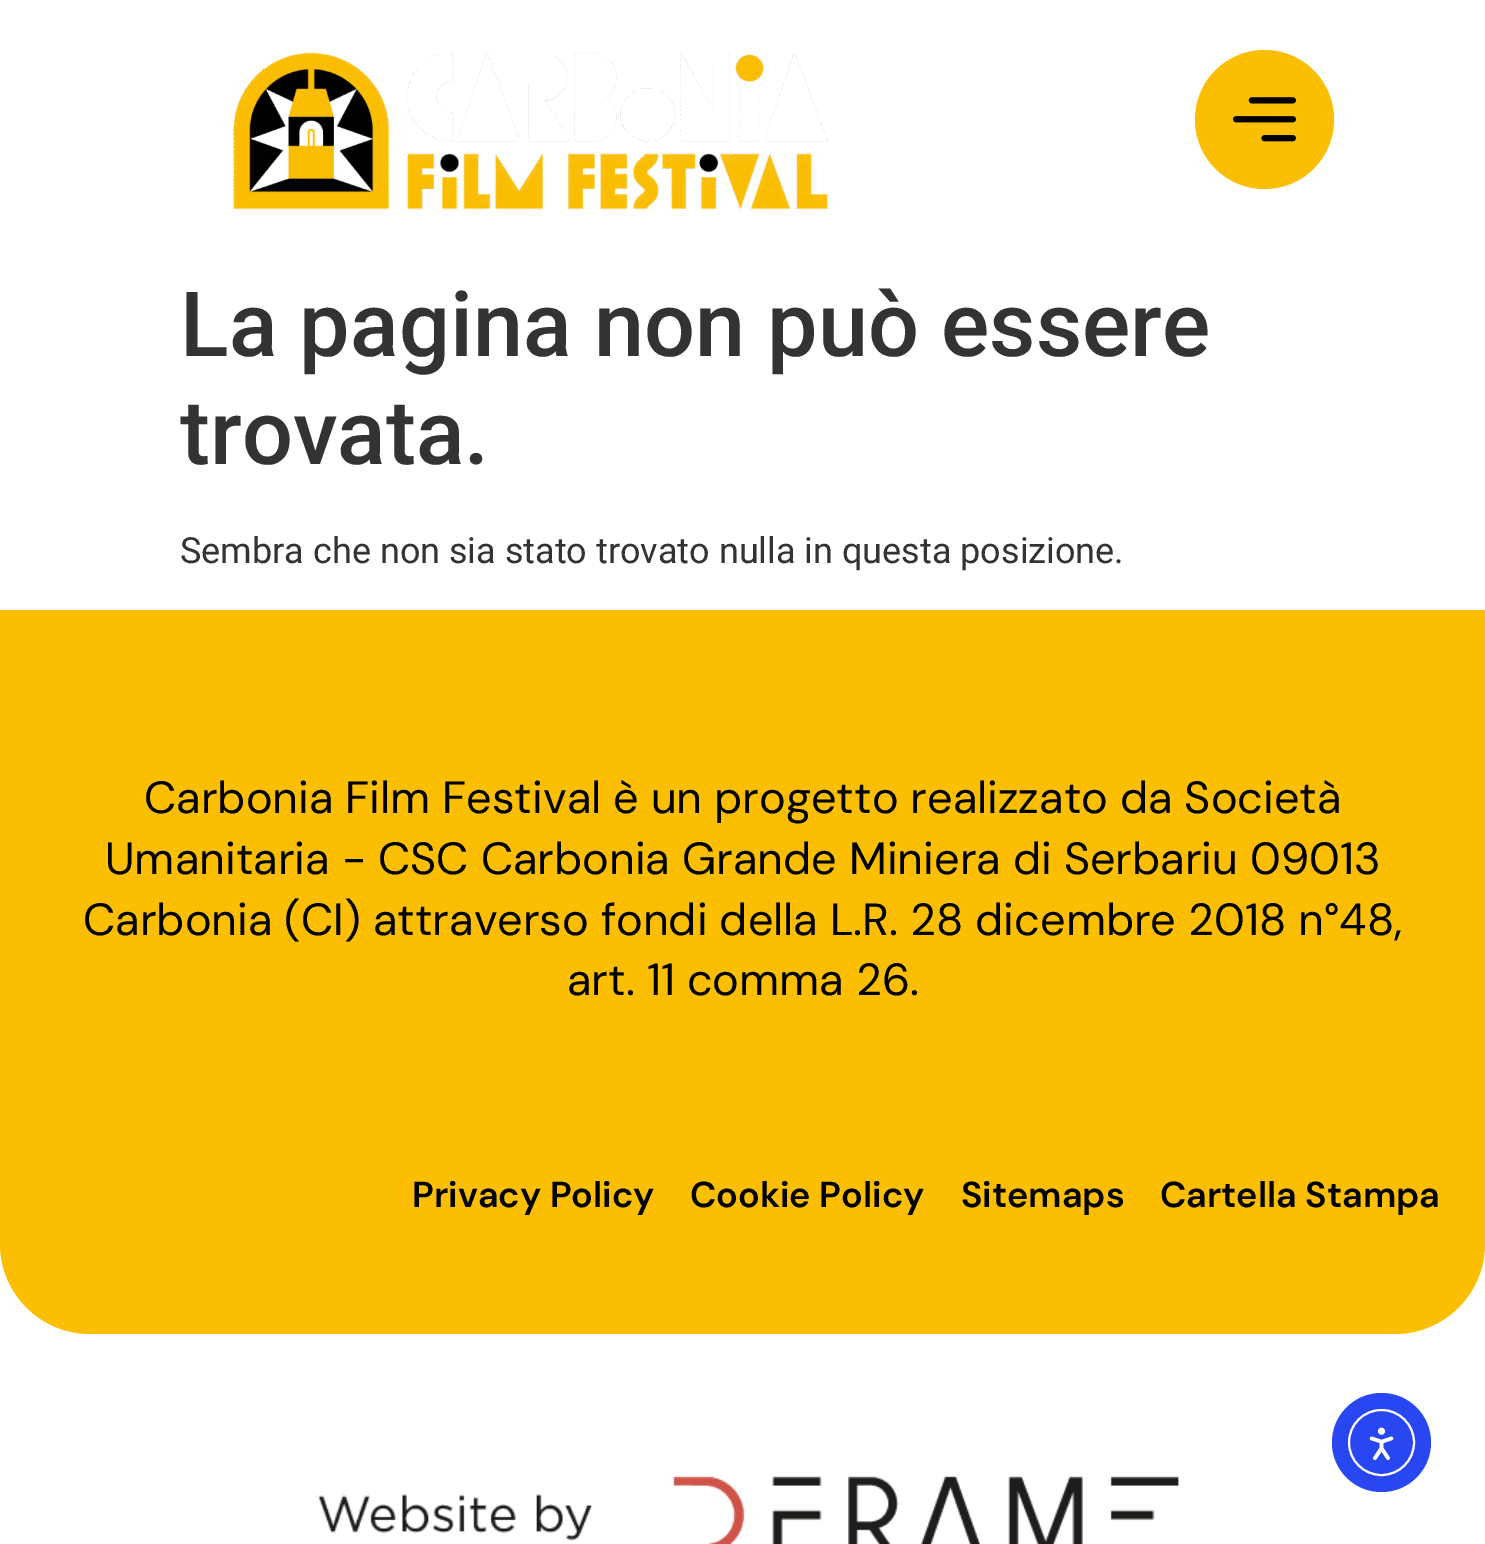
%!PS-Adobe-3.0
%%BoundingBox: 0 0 1485 1544
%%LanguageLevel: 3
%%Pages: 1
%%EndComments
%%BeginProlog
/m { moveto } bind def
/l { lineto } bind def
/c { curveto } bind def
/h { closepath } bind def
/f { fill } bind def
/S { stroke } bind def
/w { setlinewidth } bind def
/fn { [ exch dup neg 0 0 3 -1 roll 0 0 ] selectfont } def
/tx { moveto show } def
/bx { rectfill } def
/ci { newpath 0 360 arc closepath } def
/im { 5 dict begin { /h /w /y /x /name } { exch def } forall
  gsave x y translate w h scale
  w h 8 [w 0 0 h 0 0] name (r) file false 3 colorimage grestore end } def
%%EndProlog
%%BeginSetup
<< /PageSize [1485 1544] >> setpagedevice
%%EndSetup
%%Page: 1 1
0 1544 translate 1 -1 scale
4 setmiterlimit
1 setgray
0 0 1485 1544 bx
(image0.raw) 233 52 596 158 im
0.988 0.745 0 setrgbcolor
1264.5 119.5 69.5 ci f
(image1.raw) 1233 97 63 45 im
/Roboto-Medium 90 fn
0.2 setgray
(La pagina non può essere) 180 356 tx
(trovata.) 180 464 tx
/Roboto-Regular 36 fn
(Sembra che non sia stato trovato nulla in questa posizione.) 180 563 tx
0.988 0.745 0 setrgbcolor
0 610 m 1485 610 l 1485 1244 l 1485 1293.5 1444.5 1334 1395 1334 c 90 1334 l 40.5 1334 0 1293.5 0 1244 c h f
/DMSans-Regular 45 fn
0 setgray
(Carbonia Film Festival è un progetto realizzato da Società) 144 813 tx
(Umanitaria - CSC Carbonia Grande Miniera di Serbariu 09013) 105 874 tx
(Carbonia \(CI\) attraverso fondi della L.R. 28 dicembre 2018 n°48,) 83 935 tx
(art. 11 comma 26.) 567 995 tx
/DMSans-SemiBold 36 fn
(Privacy Policy) 412 1207 tx
(Cookie Policy) 690 1207 tx
(Sitemaps) 961 1207 tx
(Cartella Stampa) 1160 1207 tx
(image2.raw) 318 1476 861 68 im
0.157 0.278 0.953 setrgbcolor
1381.5 1442.5 49.5 ci f
1 setgray
2 w
1381.5 1442.5 32.5 ci S
(image3.raw) 1369 1427 25 34 im
showpage
%%EOF
